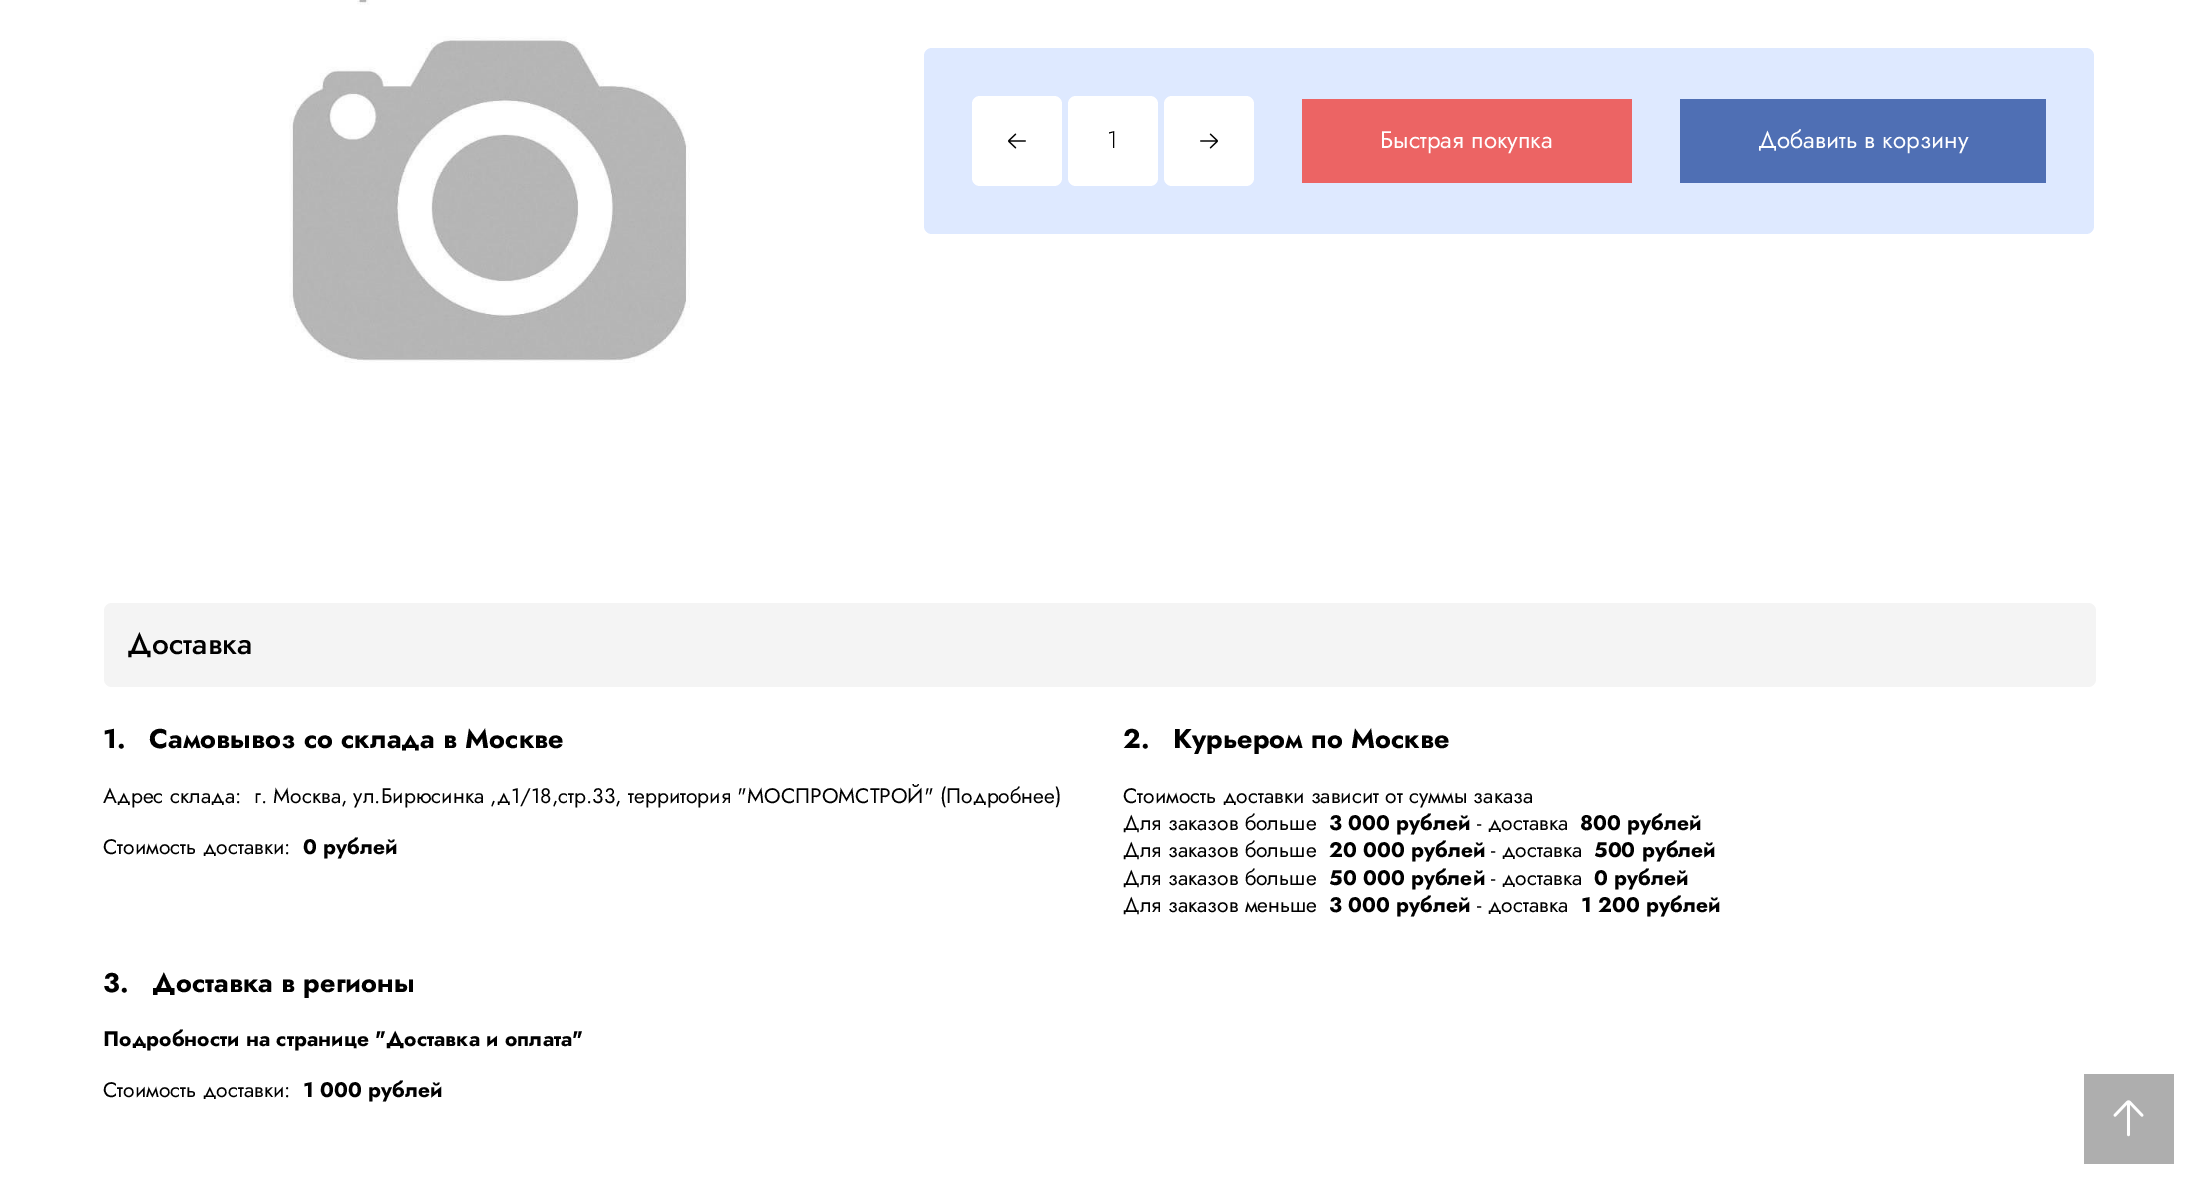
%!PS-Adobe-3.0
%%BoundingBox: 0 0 2197 1188
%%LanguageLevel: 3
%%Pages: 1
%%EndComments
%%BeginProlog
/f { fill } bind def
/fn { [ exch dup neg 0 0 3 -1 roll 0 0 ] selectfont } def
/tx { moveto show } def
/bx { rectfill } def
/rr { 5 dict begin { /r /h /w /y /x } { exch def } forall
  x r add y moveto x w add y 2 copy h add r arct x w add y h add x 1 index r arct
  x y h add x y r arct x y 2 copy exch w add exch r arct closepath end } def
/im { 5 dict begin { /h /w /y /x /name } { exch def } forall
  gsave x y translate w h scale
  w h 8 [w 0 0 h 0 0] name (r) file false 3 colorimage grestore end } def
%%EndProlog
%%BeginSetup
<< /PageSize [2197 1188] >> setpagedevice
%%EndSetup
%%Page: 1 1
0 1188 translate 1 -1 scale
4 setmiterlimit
1 setgray
0 0 2197 1188 bx
(image0.raw) 289 0 401 363 im
0.871 0.914 1 setrgbcolor
924 48 1170 186 8 rr f
1 setgray
972 96 90 90 8 rr f
(image1.raw) 1008 133 18 16 im
1068 96 90 90 8 rr f
/Jost-Light 24 fn
0 setgray
(1) 1107 148 tx
1 setgray
1164 96 90 90 8 rr f
(image2.raw) 1200 133 18 16 im
0.925 0.392 0.392 setrgbcolor
1302 99 330 84 bx
/Jost-Regular 24 fn
1 setgray
(Быстрая покупка) 1380 148 tx
0.31 0.435 0.706 setrgbcolor
1680 99 366 84 bx
1 setgray
(Добавить в корзину) 1758 148 tx
0.957 setgray
104 603 1992 84 8 rr f
/Jost-Medium 30 fn
0 setgray
(Доставка) 127 654 tx
/Jost-Bold 27 fn
(1.) 103 748 tx
(Самовывоз со склада в Москве) 149 748 tx
/Jost-Regular 21 fn
(Адрес склада:  г. Москва, ул.Бирюсинка ,д1/18,стр.33, территория "МОСПРОМСТРОЙ" \(Подробнее\)) 103 803 tx
(Стоимость доставки:) 103 854 tx
/Jost-Bold 21 fn
(0 рублей) 303 854 tx
/Jost-Bold 27 fn
(2.) 1123 748 tx
(Курьером по Москве) 1173 748 tx
/Jost-Regular 21 fn
(Стоимость доставки зависит от суммы заказа) 1123 803 tx
(Для заказов больше) 1123 830 tx
/Jost-Bold 21 fn
(3 000 рублей) 1329 830 tx
/Jost-Regular 21 fn
(- доставка) 1477 830 tx
/Jost-Bold 21 fn
(800 рублей) 1580 830 tx
/Jost-Regular 21 fn
(Для заказов больше) 1123 857 tx
/Jost-Bold 21 fn
(20 000 рублей) 1329 857 tx
/Jost-Regular 21 fn
(- доставка) 1491 857 tx
/Jost-Bold 21 fn
(500 рублей) 1594 857 tx
/Jost-Regular 21 fn
(Для заказов больше) 1123 885 tx
/Jost-Bold 21 fn
(50 000 рублей) 1329 885 tx
/Jost-Regular 21 fn
(- доставка) 1491 885 tx
/Jost-Bold 21 fn
(0 рублей) 1594 885 tx
/Jost-Regular 21 fn
(Для заказов меньше) 1123 912 tx
/Jost-Bold 21 fn
(3 000 рублей) 1329 912 tx
/Jost-Regular 21 fn
(- доставка) 1477 912 tx
/Jost-Bold 21 fn
(1 200 рублей) 1581 912 tx
/Jost-Bold 27 fn
(3.) 103 992 tx
(Доставка в регионы) 152 992 tx
/Jost-Bold 21 fn
(Подробности на странице "Доставка и оплата") 103 1046 tx
/Jost-Regular 21 fn
(Стоимость доставки:) 103 1097 tx
/Jost-Bold 21 fn
(1 000 рублей) 303 1097 tx
0.682 setgray
2084 1074 90 90 bx
(image3.raw) 2113 1100 31 37 im
showpage
%%EOF
